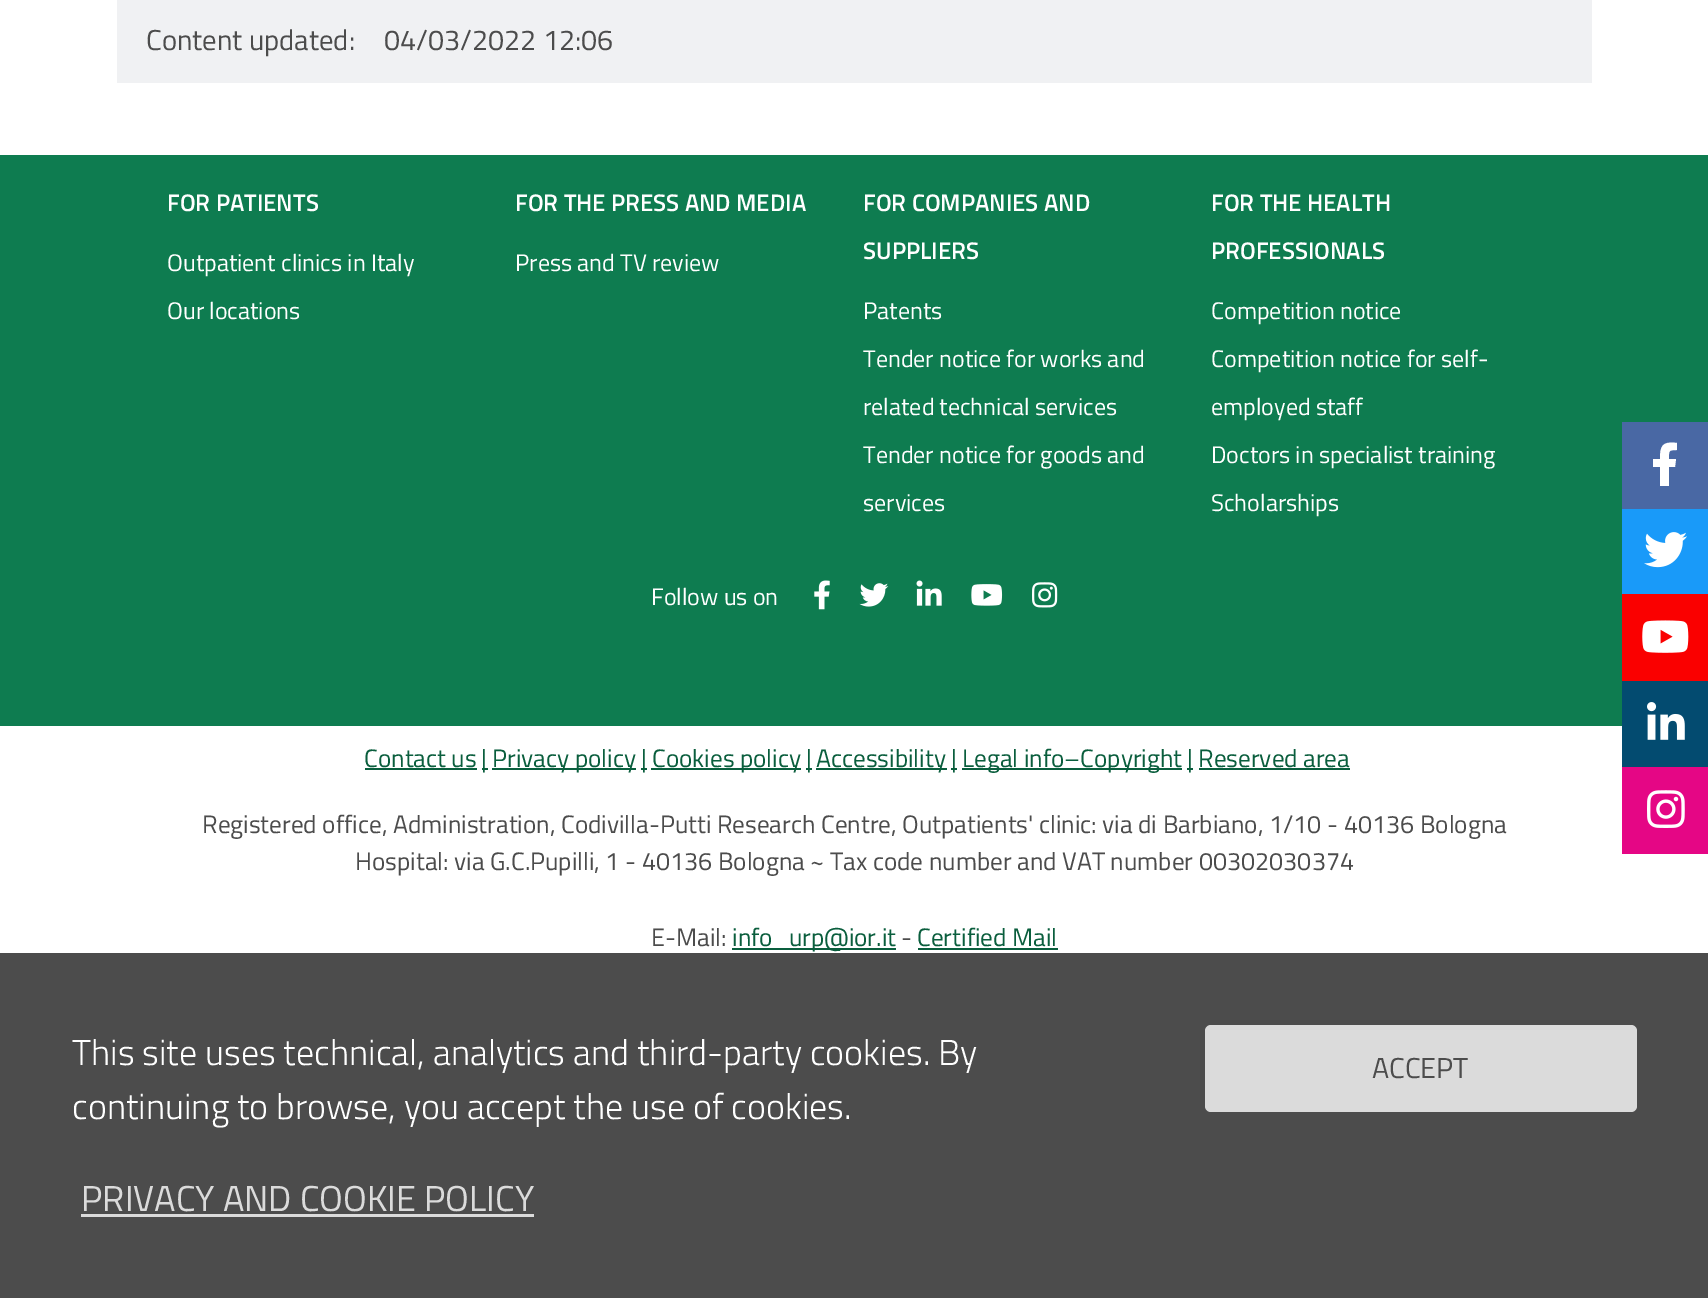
%!PS-Adobe-3.0
%%BoundingBox: 0 0 1708 1310
%%LanguageLevel: 3
%%Pages: 1
%%EndComments
%%BeginProlog
/m { moveto } bind def
/l { lineto } bind def
/c { curveto } bind def
/h { closepath } bind def
/f { fill } bind def
/fn { [ exch dup neg 0 0 3 -1 roll 0 0 ] selectfont } def
/tx { moveto show } def
/bx { rectfill } def
/rr { 5 dict begin { /r /h /w /y /x } { exch def } forall
  x r add y moveto x w add y 2 copy h add r arct x w add y h add x 1 index r arct
  x y h add x y r arct x y 2 copy exch w add exch r arct closepath end } def
/im { 5 dict begin { /h /w /y /x /name } { exch def } forall
  gsave x y translate w h scale
  w h 8 [w 0 0 h 0 0] name (r) file false 3 colorimage grestore end } def
%%EndProlog
%%BeginSetup
<< /PageSize [1708 1310] >> setpagedevice
%%EndSetup
%%Page: 1 1
0 1310 translate 1 -1 scale
4 setmiterlimit
1 setgray
0 0 1708 1310 bx
0.941 0.945 0.953 setrgbcolor
117 0 1475 83 bx
/TitilliumWeb-Regular 28.75 fn
0.298 setgray
(Content updated:) 146 50 tx
(04/03/2022 12:06) 384 50 tx
0.055 0.486 0.314 setrgbcolor
0 155 1708 571 bx
0.286 0.408 0.643 setrgbcolor
1622 422 86 87 bx
1 setgray
1675 467 m 1676 459 l 1669 459 l 1669 451 1668 450 1677 450 c 1677 443 l 1662 441 1660 446 1660 459 c 1653 459 l 1653 467 l 1660 467 l 1660 486 l 1669 486 l 1669 467 l h f
0.098 0.604 0.976 setrgbcolor
1622 509 86 85 bx
(image0.raw) 1644 532 43 36 im
0.98 0 0 setrgbcolor
1622 594 86 87 bx
(image1.raw) 1642 620 47 33 im
0.012 0.294 0.439 setrgbcolor
1622 681 86 86 bx
(image2.raw) 1647 702 38 38 im
0.898 0.024 0.522 setrgbcolor
1622 767 86 87 bx
(image3.raw) 1647 790 38 38 im
/TitilliumWeb-SemiBold 24 fn
1 setgray
(FOR PATIENTS) 167 211 tx
/TitilliumWeb-Regular 24 fn
(Outpatient clinics in Italy) 167 271 tx
(Our locations) 167 319 tx
/TitilliumWeb-SemiBold 24 fn
(FOR THE PRESS AND MEDIA) 515 211 tx
/TitilliumWeb-Regular 24 fn
(Press and TV review) 515 271 tx
/TitilliumWeb-SemiBold 24 fn
(FOR COMPANIES AND) 863 211 tx
(SUPPLIERS) 863 259 tx
/TitilliumWeb-Regular 24 fn
(Patents) 863 319 tx
(Tender notice for works and) 863 367 tx
(related technical services) 863 415 tx
(Tender notice for goods and) 863 463 tx
(services) 863 511 tx
/TitilliumWeb-SemiBold 24 fn
(FOR THE HEALTH) 1211 211 tx
(PROFESSIONALS) 1211 259 tx
/TitilliumWeb-Regular 24 fn
(Competition notice) 1211 319 tx
(Competition notice for self-) 1211 367 tx
(employed staff) 1211 415 tx
(Doctors in specialist training) 1211 463 tx
(Scholarships) 1211 511 tx
(Follow us on) 651 605 tx
(image4.raw) 814 580 16 30 im
(image5.raw) 859 583 30 24 im
(image6.raw) 916 580 26 26 im
(image7.raw) 971 584 32 22 im
(image8.raw) 1032 582 26 26 im
/TitilliumWeb-Regular 25.2 fn
0.039 0.369 0.239 setrgbcolor
(Contact us) 364 767 tx
365 768 112 2 bx
482 768 6 2 bx
(|) 481 767 tx
492 768 144 2 bx
(Privacy policy) 492 767 tx
641 768 6 2 bx
(|) 641 767 tx
651 768 150 2 bx
(Cookies policy) 652 767 tx
806 768 6 2 bx
(|) 806 767 tx
816 768 131 2 bx
(Accessibility) 816 767 tx
951 768 6 2 bx
(|) 951 767 tx
962 768 220 2 bx
(Legal info–Copyright) 962 767 tx
1187 768 6 2 bx
(|) 1187 767 tx
(Reserved area) 1198 767 tx
1199 768 151 2 bx
0.298 setgray
(Registered office, Administration, Codivilla-Putti Research Centre, Outpatients' clinic: via di Barbiano, 1/10 - 40136 Bologna) 202 833 tx
(Hospital: via G.C.Pupilli, 1 - 40136 Bologna ~ Tax code number and VAT number 00302030374) 355 870 tx
(E-Mail:) 651 946 tx
0.039 0.369 0.239 setrgbcolor
732 948 164 2 bx
(info_urp@ior.it) 732 946 tx
0.298 setgray
(-) 901 946 tx
0.039 0.369 0.239 setrgbcolor
(Certified Mail) 917 946 tx
918 948 140 2 bx
0.298 setgray
0 953 1708 345 bx
/TitilliumWeb-Light 36 fn
1 setgray
(This site uses technical, analytics and third-party cookies. By) 72 1065 tx
(continuing to browse, you accept the use of cookies.) 72 1119 tx
/TitilliumWeb-Regular 36 fn
0.859 setgray
(PRIVACY AND COOKIE POLICY) 81 1211 tx
81 1214 453 3 bx
1205 1025 432 87 6 rr f
/TitilliumWeb-Regular 28.75 fn
0.298 setgray
(ACCEPT) 1372 1078 tx
showpage
%%EOF
